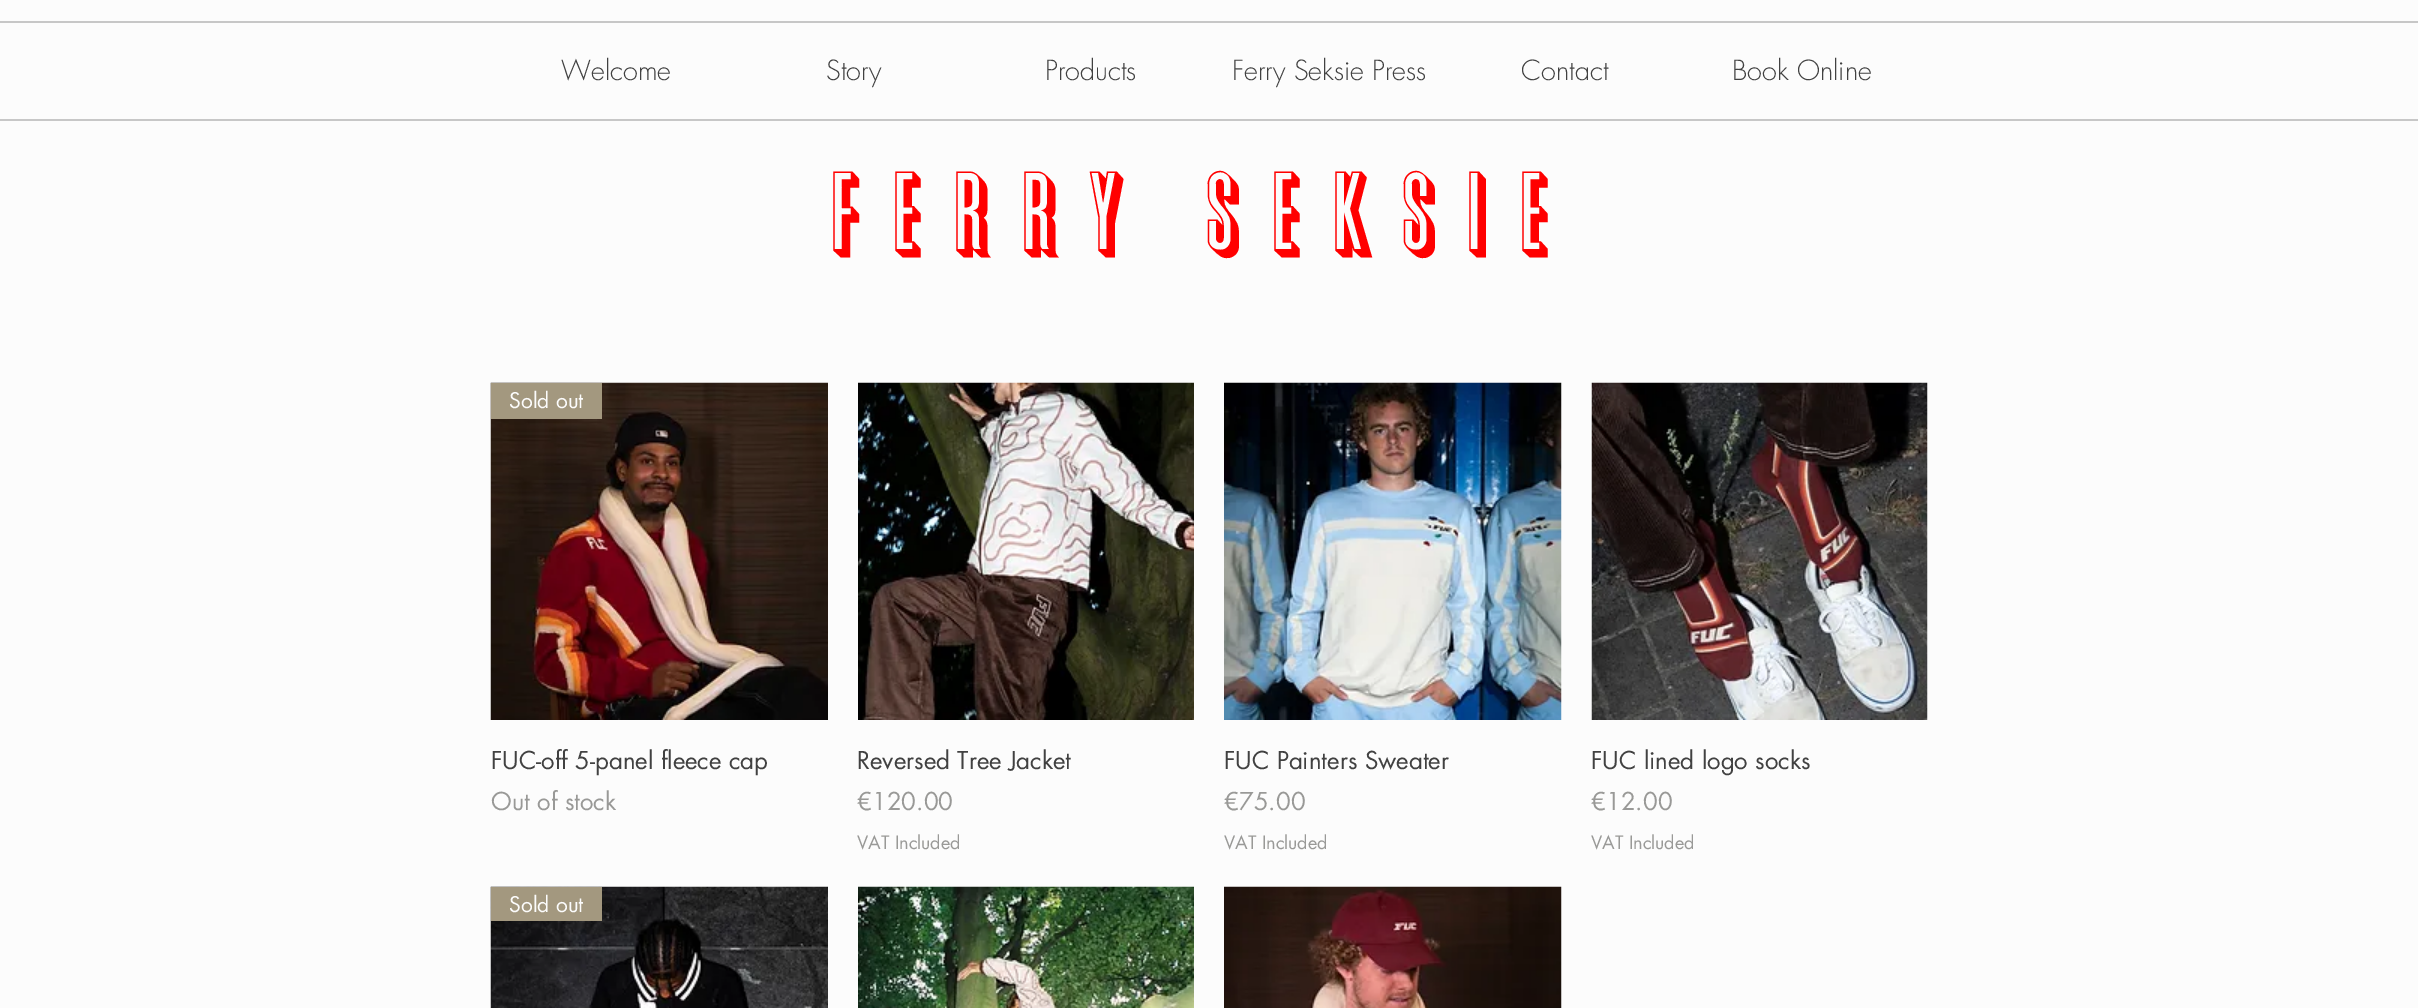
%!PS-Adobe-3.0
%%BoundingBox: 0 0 2418 1008
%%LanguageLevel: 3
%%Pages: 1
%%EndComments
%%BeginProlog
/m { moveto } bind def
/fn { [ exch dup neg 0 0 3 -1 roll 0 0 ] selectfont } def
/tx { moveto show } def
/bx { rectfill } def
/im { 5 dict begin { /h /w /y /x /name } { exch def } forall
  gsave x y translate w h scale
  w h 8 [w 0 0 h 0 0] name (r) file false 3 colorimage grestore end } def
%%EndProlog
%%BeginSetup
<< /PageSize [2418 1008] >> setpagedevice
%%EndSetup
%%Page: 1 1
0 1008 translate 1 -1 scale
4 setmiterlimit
0.988 setgray
0 0 2418 1008 bx
0.78 setgray
0 21 2418 2 bx
0 119 2418 2 bx
/futura-Light 27 fn
0.255 setgray
(Welcome) 561 80 tx
(Story) 826 80 tx
(Products) 1045 80 tx
(Ferry Seksie Press) 1232 80 tx
(Contact) 1521 80 tx
(Book Online) 1732 80 tx
/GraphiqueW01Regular-Regular 103.5 fn
1 0 0 setrgbcolor
828 249 m 25.9 0 (ferry seksie) ashow
(image0.raw) 490 382 338 338 im
0.639 0.596 0.498 setrgbcolor
491 383 111 36 bx
/futura-Regular 21 fn
0.988 setgray
(Sold out) 509 408 tx
/futura-Regular 24 fn
0.255 setgray
(FUC-off 5-panel fleece cap) 491 769 tx
0.6 0.6 0.592 setrgbcolor
(Out of stock) 491 810 tx
(image1.raw) 858 382 336 338 im
0.255 setgray
(Reversed Tree Jacket) 857 769 tx
0.6 0.6 0.592 setrgbcolor
(€120.00) 857 810 tx
/futura-Regular 18 fn
(VAT Included) 857 849 tx
(image2.raw) 1224 382 338 338 im
/futura-Regular 24 fn
0.255 setgray
(FUC Painters Sweater) 1224 769 tx
0.6 0.6 0.592 setrgbcolor
(€75.00) 1224 810 tx
/futura-Regular 18 fn
(VAT Included) 1224 849 tx
(image3.raw) 1591 382 337 338 im
/futura-Regular 24 fn
0.255 setgray
(FUC lined logo socks) 1591 769 tx
0.6 0.6 0.592 setrgbcolor
(€12.00) 1591 810 tx
/futura-Regular 18 fn
(VAT Included) 1591 849 tx
(image4.raw) 490 886 338 122 im
0.639 0.596 0.498 setrgbcolor
491 887 111 34 bx
/futura-Regular 21 fn
0.988 setgray
(Sold out) 509 912 tx
(image5.raw) 858 886 336 122 im
(image6.raw) 1224 886 338 122 im
showpage
%%EOF
